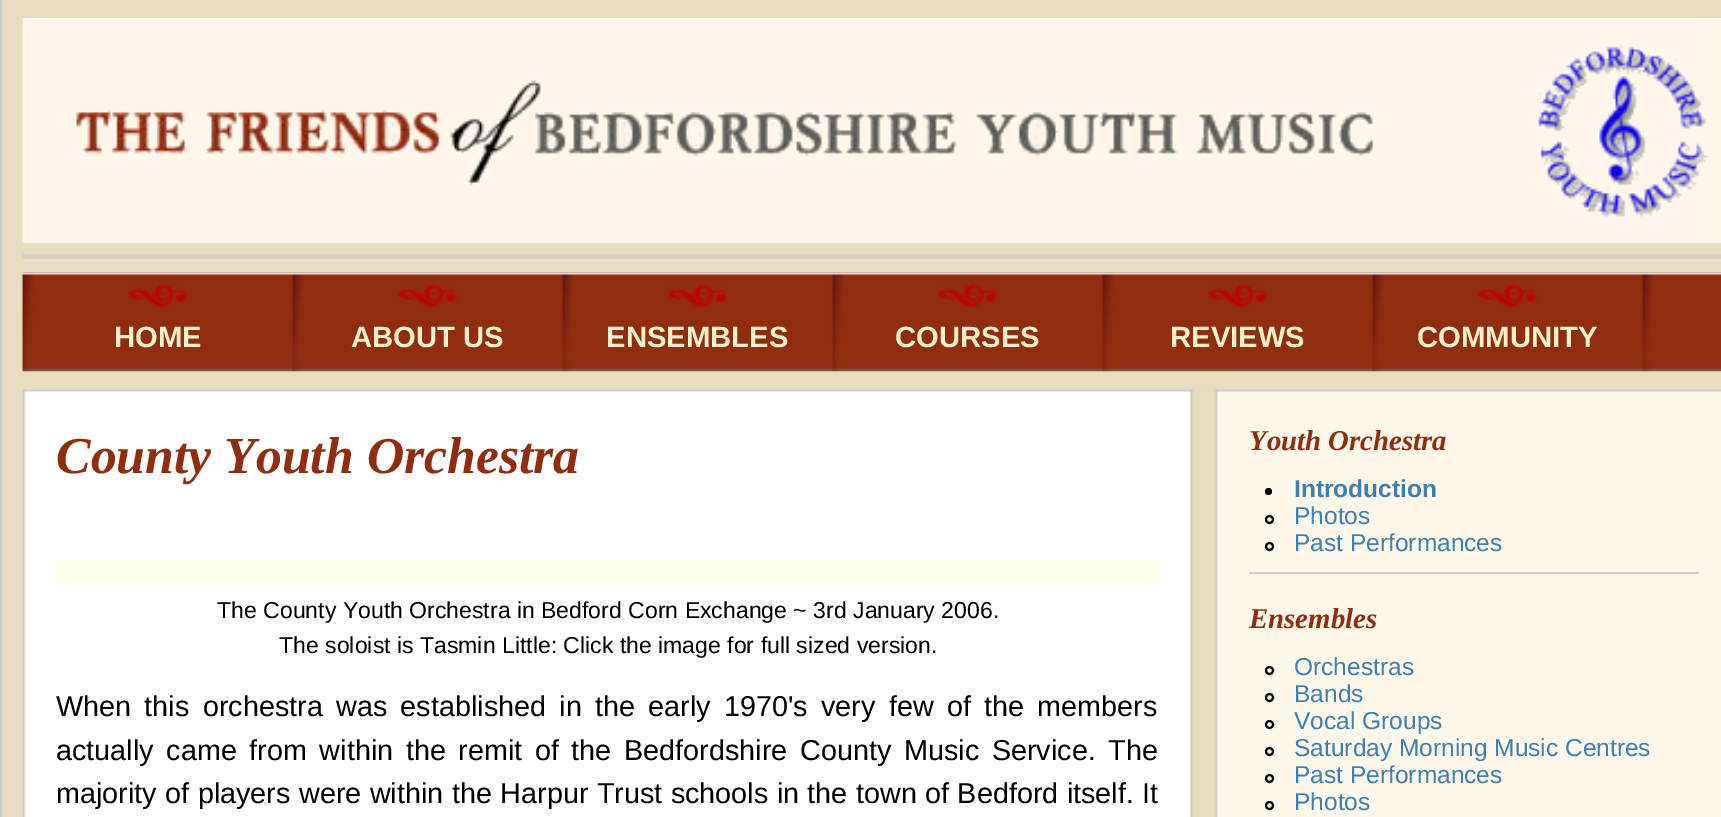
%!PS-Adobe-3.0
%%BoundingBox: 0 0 1721 817
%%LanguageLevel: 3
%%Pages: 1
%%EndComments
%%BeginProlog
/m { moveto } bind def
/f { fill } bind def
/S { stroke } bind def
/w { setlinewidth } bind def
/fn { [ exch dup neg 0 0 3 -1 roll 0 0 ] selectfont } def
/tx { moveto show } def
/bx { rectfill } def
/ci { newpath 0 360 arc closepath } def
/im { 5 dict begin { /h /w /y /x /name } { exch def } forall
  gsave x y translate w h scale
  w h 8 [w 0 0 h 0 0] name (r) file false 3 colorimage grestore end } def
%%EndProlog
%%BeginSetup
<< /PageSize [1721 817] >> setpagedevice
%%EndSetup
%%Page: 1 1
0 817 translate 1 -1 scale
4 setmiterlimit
0.914 0.867 0.749 setrgbcolor
0 0 1721 817 bx
0.8 setgray
0 0 2 817 bx
0.992 0.969 0.918 setrgbcolor
1709 18 12 225 bx
(image0.raw) 22 18 1687 225 im
0.851 0.816 0.737 setrgbcolor
23 254 1698 5 bx
0.906 0.882 0.855 setrgbcolor
23 259 1698 2 bx
(image1.raw) 22 272 1699 100 im
(image2.raw) 128 283 59 25 im
/LiberationSans-Bold 29.25 fn
1 0.941 0.804 setrgbcolor
(HOME) 114 347 tx
(image3.raw) 398 283 59 25 im
(ABOUT US) 351 347 tx
(image2.raw) 668 283 59 25 im
(ENSEMBLES) 606 347 tx
(image2.raw) 938 283 59 25 im
(COURSES) 895 347 tx
(image2.raw) 1208 283 59 25 im
(REVIEWS) 1170 347 tx
(image4.raw) 1478 283 59 25 im
(COMMUNITY) 1417 347 tx
(image5.raw) 22 389 1699 428 im
(image6.raw) 22 389 1699 3 im
/LiberationSerif-BoldItalic 51.75 fn
0.561 0.176 0.055 setrgbcolor
(County Youth Orchestra) 56 473 tx
1 1 0.933 setrgbcolor
56 560 1103 25 bx
/LiberationSans-Regular 23.05 fn
0 setgray
(The County Youth Orchestra in Bedford Corn Exchange ~ 3rd January 2006.) 217 618 tx
(The soloist is Tasmin Little: Click the image for full sized version.) 279 653 tx
/LiberationSans-Regular 28.8 fn
56 716 m 5.25 0 32 (When this orchestra was established in the early 1970's very few of the members) widthshow
56 760 m 4.6 0 32 (actually came from within the remit of the Bedfordshire County Music Service. The) widthshow
56 803 m 0.4 0 32 (majority of players were within the Harpur Trust schools in the town of Bedford itself. It) widthshow
/LiberationSerif-BoldItalic 28.8 fn
0.561 0.176 0.055 setrgbcolor
(Youth Orchestra) 1249 450 tx
0 setgray
1268.5 491.5 3.5 ci f
/LiberationSans-Bold 24.5 fn
0.239 0.498 0.694 setrgbcolor
(Introduction) 1294 497 tx
0 setgray
2 w
1269.5 519.5 3.5 ci S
/LiberationSans-Regular 24.5 fn
0.239 0.498 0.694 setrgbcolor
(Photos) 1294 524 tx
0 setgray
1269.5 546.5 3.5 ci S
0.239 0.498 0.694 setrgbcolor
(Past Performances) 1294 551 tx
0.8 setgray
1249 572 450 2 bx
/LiberationSerif-BoldItalic 28.8 fn
0.561 0.176 0.055 setrgbcolor
(Ensembles) 1249 628 tx
0 setgray
1269.5 670.5 3.5 ci S
/LiberationSans-Regular 24.5 fn
0.239 0.498 0.694 setrgbcolor
(Orchestras) 1294 675 tx
0 setgray
1269.5 697.5 3.5 ci S
0.239 0.498 0.694 setrgbcolor
(Bands) 1294 702 tx
0 setgray
1269.5 724.5 3.5 ci S
0.239 0.498 0.694 setrgbcolor
(Vocal Groups) 1294 729 tx
0 setgray
1269.5 751.5 3.5 ci S
0.239 0.498 0.694 setrgbcolor
(Saturday Morning Music Centres) 1294 756 tx
0 setgray
1269.5 778.5 3.5 ci S
0.239 0.498 0.694 setrgbcolor
(Past Performances) 1294 783 tx
0 setgray
1269.5 805.5 3.5 ci S
0.239 0.498 0.694 setrgbcolor
(Photos) 1294 810 tx
showpage
%%EOF
